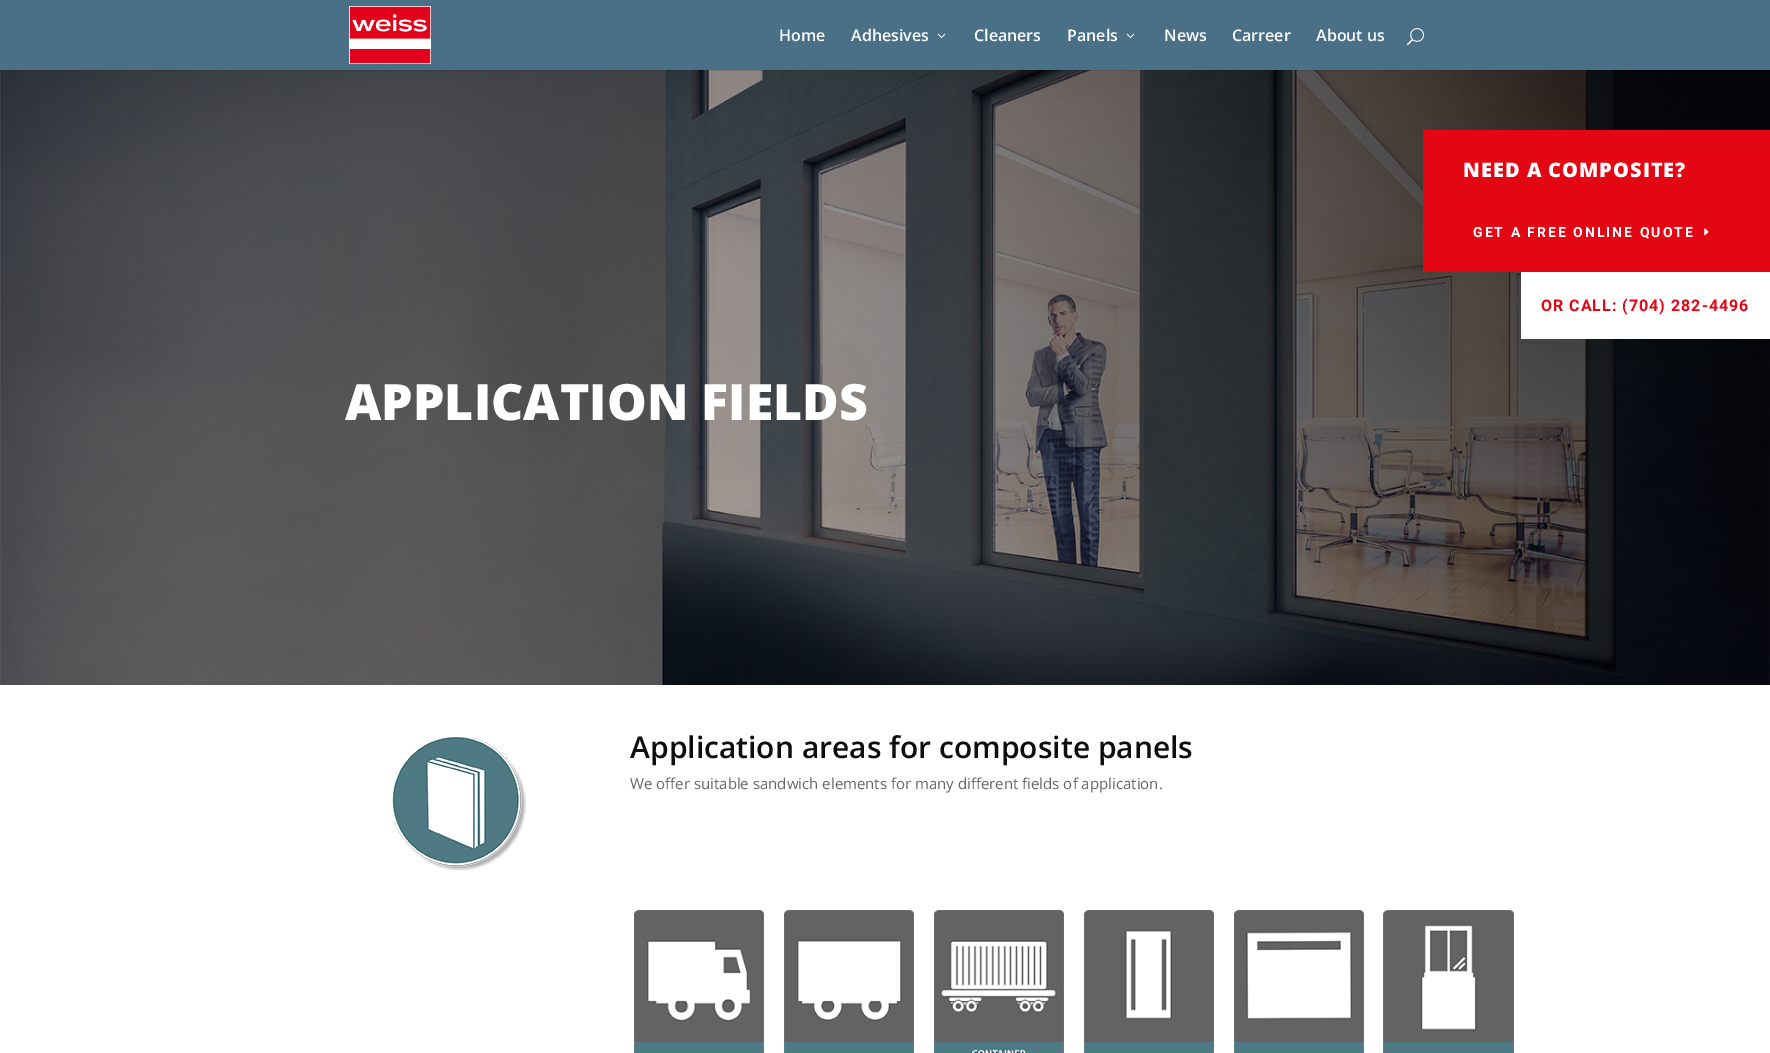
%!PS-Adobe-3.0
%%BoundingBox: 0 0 1770 1053
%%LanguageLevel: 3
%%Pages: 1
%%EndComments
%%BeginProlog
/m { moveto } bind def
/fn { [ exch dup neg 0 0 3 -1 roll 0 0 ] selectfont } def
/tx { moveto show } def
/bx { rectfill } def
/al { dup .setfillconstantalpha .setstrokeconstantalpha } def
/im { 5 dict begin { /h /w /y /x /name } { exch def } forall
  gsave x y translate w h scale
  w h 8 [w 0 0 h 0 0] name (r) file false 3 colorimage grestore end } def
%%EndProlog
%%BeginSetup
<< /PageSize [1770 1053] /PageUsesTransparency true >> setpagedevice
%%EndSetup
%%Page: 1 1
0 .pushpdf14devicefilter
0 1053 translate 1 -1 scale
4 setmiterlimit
1 setgray
0 0 1770 1053 bx
(image3.raw) 0 70 1770 615 im
0.1 al
0 setgray
0 70 1586 1 bx
1 al
0.286 0.439 0.525 setrgbcolor
0 0 1770 70 bx
(image0.raw) 349 6 82 58 im
/OpenSans-SemiBold 16 fn
1 setgray
(Home) 779 41 tx
(Adhesives) 851 41 tx
(image1.raw) 937 33 9 5 im
(Cleaners) 974 41 tx
(Panels) 1067 41 tx
(image1.raw) 1126 33 9 5 im
(News) 1164 41 tx
(Carreer) 1232 41 tx
(About us) 1316 41 tx
(image2.raw) 1407 28 17 18 im
0.89 0.024 0.075 setrgbcolor
1423 130 347 142 bx
/OpenSans-ExtraBold 20 fn
1 setgray
1463 177 m 1 0 (NEED A COMPOSITE?) ashow
/Roboto-Bold 14 fn
1473 237 m 2 0 (GET A FREE ONLINE QUOTE) ashow
(image4.raw) 1704 228 5 8 im
1521 272 249 67 bx
/Roboto-Bold 16 fn
0.89 0.024 0.075 setrgbcolor
1541 311 m 1 0 (OR CALL: \(704\) 282-4496) ashow
/OpenSans-ExtraBold 50 fn
1 setgray
(APPLICATION FIELDS) 345 420 tx
(image5.raw) 392 737 135 134 im
/OpenSans-SemiBold 30 fn
0.051 setgray
(Application areas for composite panels) 630 758 tx
/OpenSans-Regular 15 fn
0.4 setgray
(We offer suitable sandwich elements for many different fields of application.) 630 789 tx
(image6.raw) 634 910 130 143 im
(image7.raw) 784 910 130 143 im
(image8.raw) 934 910 130 143 im
(image9.raw) 1084 910 130 143 im
(image10.raw) 1234 910 130 143 im
(image11.raw) 1383 910 131 143 im
.poppdf14devicefilter showpage
%%EOF
